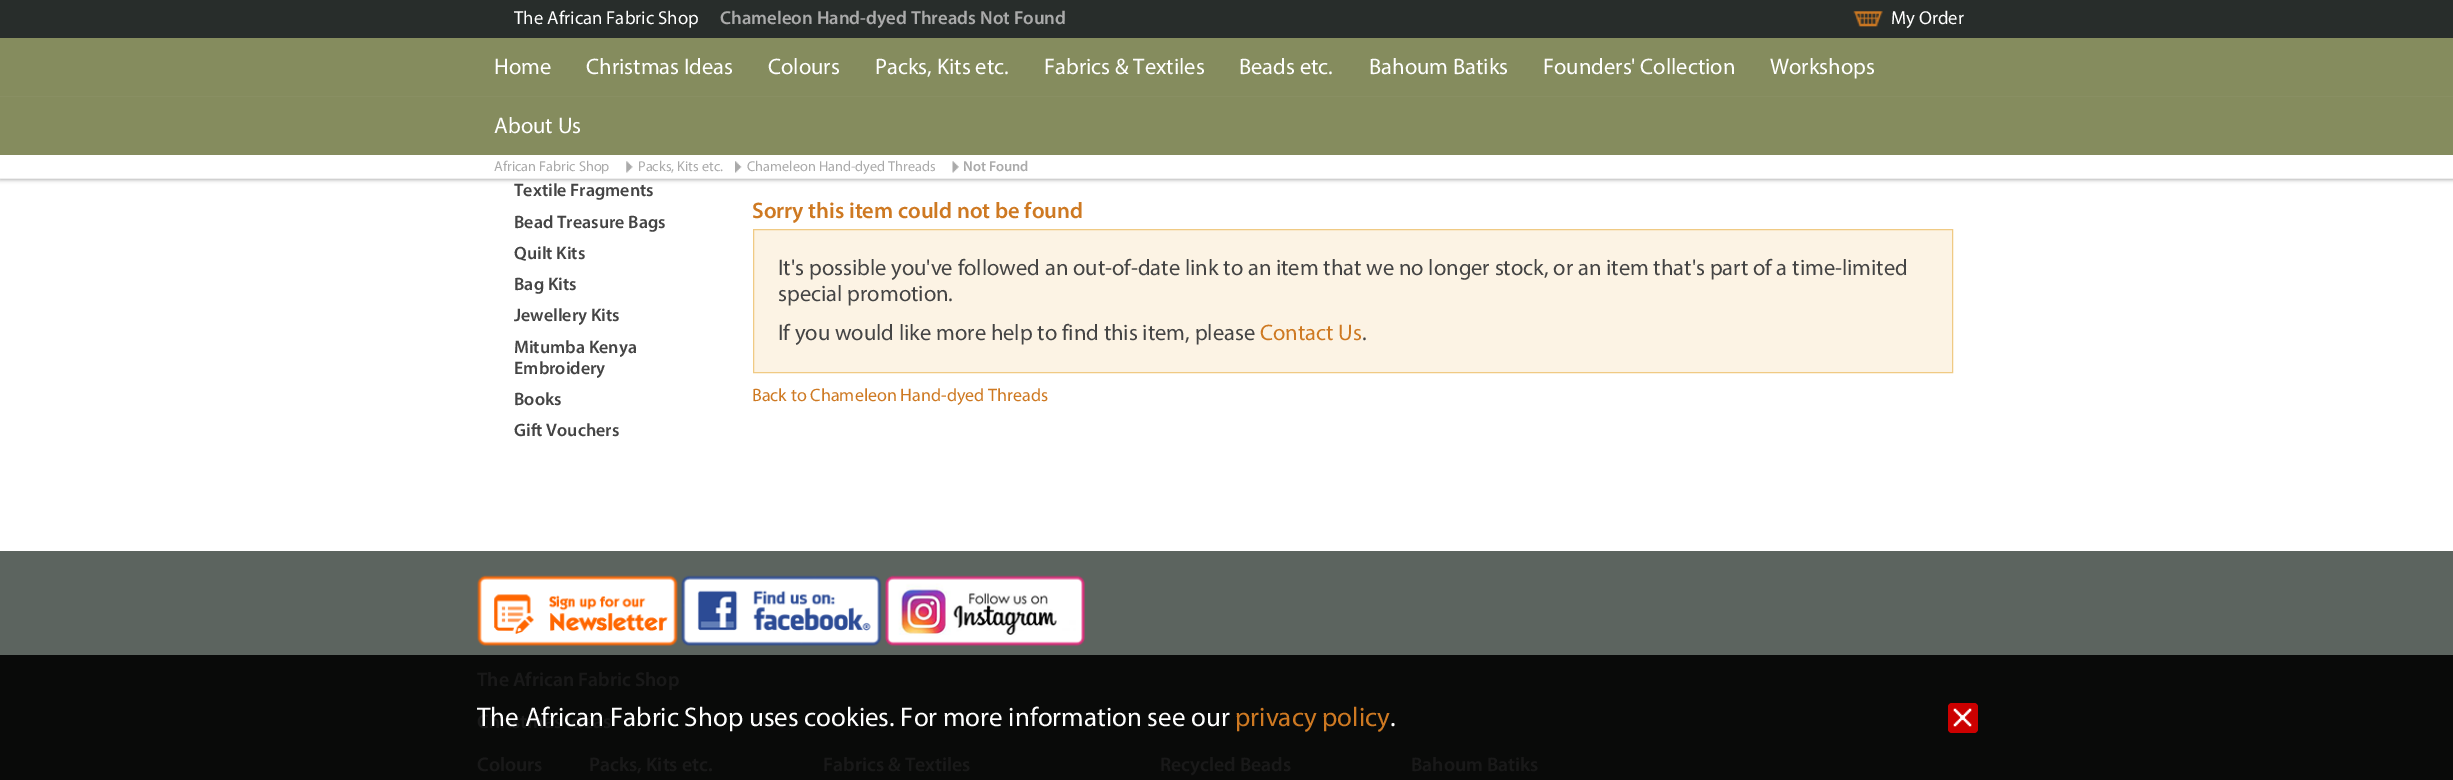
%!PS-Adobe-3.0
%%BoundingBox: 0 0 2453 780
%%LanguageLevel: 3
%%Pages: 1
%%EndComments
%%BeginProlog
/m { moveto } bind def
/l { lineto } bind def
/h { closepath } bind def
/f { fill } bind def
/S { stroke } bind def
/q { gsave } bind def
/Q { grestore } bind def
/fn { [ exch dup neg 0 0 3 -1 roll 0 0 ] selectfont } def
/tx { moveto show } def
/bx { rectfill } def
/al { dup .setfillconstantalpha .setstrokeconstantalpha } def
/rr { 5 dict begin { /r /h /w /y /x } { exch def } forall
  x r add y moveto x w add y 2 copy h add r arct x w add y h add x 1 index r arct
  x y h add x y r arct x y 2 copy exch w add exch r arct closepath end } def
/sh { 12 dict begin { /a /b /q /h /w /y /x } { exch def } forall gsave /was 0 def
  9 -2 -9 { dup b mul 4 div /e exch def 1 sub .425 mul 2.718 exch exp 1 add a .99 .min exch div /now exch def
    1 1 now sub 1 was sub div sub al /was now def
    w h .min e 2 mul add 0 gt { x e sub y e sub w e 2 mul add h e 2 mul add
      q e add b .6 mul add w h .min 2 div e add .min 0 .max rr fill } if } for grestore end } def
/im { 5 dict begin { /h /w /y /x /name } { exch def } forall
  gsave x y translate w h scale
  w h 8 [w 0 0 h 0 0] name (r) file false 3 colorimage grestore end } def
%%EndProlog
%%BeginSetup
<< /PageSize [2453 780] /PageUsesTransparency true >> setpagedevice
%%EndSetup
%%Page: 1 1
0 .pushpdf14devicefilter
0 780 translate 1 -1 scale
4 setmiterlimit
0.361 0.392 0.373 setrgbcolor
0 0 2453 780 bx
0.035 0.039 0.035 setrgbcolor
0 655 2453 125 bx
0.157 0.176 0.169 setrgbcolor
0 0 2453 38 bx
/Myriad-Regular 18.75 fn
1 setgray
(The African Fabric Shop) 514 24 tx
/Myriad-SemiBold 18.75 fn
0.667 setgray
(Chameleon Hand-dyed Threads Not Found) 720 24 tx
(image0.raw) 1853 11 30 16 im
/Myriad-Regular 18.75 fn
1 setgray
(My Order) 1891 24 tx
0 179 2453 372 bx
0 setgray
0 156 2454 24 0 2 0.3 sh
0.522 0.549 0.369 setrgbcolor
0 38 2453 117 bx
0.537 0.561 0.388 setrgbcolor
0 96 2453 1 bx
/Myriad-Regular 22.5 fn
1 setgray
(Home) 494 74 tx
(Christmas Ideas) 586 74 tx
(Colours) 768 74 tx
(Packs, Kits etc.) 875 74 tx
(Fabrics & Textiles) 1044 74 tx
(Beads etc.) 1239 74 tx
(Bahoum Batiks) 1369 74 tx
(Founders' Collection) 1543 74 tx
(Workshops) 1770 74 tx
(About Us) 494 133 tx
0 155 2453 23 bx
0.933 setgray
0 178 2453 1 bx
/Myriad-Regular 14.3 fn
0.667 setgray
(African Fabric Shop) 494 171 tx
(image1.raw) 626 161 7 12 im
(Packs, Kits etc.) 638 171 tx
(image2.raw) 735 161 7 12 im
(Chameleon Hand-dyed Threads) 747 171 tx
(image3.raw) 952 161 7 12 im
/Myriad-SemiBold 14.3 fn
(Not Found) 963 171 tx
/Myriad-SemiBold 18 fn
0.267 setgray
(Textile Fragments) 514 196 tx
(Bead Treasure Bags) 514 228 tx
(Quilt Kits) 514 259 tx
(Bag Kits) 514 290 tx
(Jewellery Kits) 514 321 tx
(Mitumba Kenya) 514 353 tx
(Embroidery) 514 374 tx
(Books) 514 405 tx
(Gift Vouchers) 514 436 tx
/Myriad-SemiBold 22.5 fn
0.808 0.475 0.133 setrgbcolor
(Sorry this item could not be found) 752 218 tx
0.988 0.953 0.894 setrgbcolor
753.5 229.5 m 1952.5 229.5 l 1952.5 372.5 l 753.5 372.5 l h q f Q
0.941 0.792 0.518 setrgbcolor
S
/Myriad-Regular 22.5 fn
0.267 setgray
(It's possible you've followed an out-of-date link to an item that we no longer stock, or an item that's part of a time-limited) 778 275 tx
(special promotion.) 778 301 tx
(If you would like more help to find this item, please) 778 340 tx
0.808 0.475 0.133 setrgbcolor
(Contact Us) 1260 340 tx
0.267 setgray
(.) 1362 340 tx
/Myriad-Regular 18 fn
0.808 0.475 0.133 setrgbcolor
(Back to Chameleon Hand-dyed Threads) 752 401 tx
(image4.raw) 477 575 201 71 im
(image5.raw) 681 575 201 71 im
(image6.raw) 885 575 200 71 im
/Myriad-SemiBold 19.75 fn
0.098 setgray
(The African Fabric Shop) 477 686 tx
(Christmas Ideas) 477 728 tx
(Colours) 477 771 tx
(Packs, Kits etc.) 589 771 tx
(Fabrics & Textiles) 823 771 tx
(Recycled Beads) 1160 771 tx
(Bahoum Batiks) 1411 771 tx
/Myriad-Regular 27 fn
1 setgray
(The African Fabric Shop uses cookies. For more information see our) 477 726 tx
0.808 0.475 0.133 setrgbcolor
(privacy policy) 1235 726 tx
1 setgray
(.) 1390 726 tx
0.8 0 0 setrgbcolor
1948 703 30 30 4 rr f
(image7.raw) 1953 708 19 19 im
.poppdf14devicefilter showpage
%%EOF
